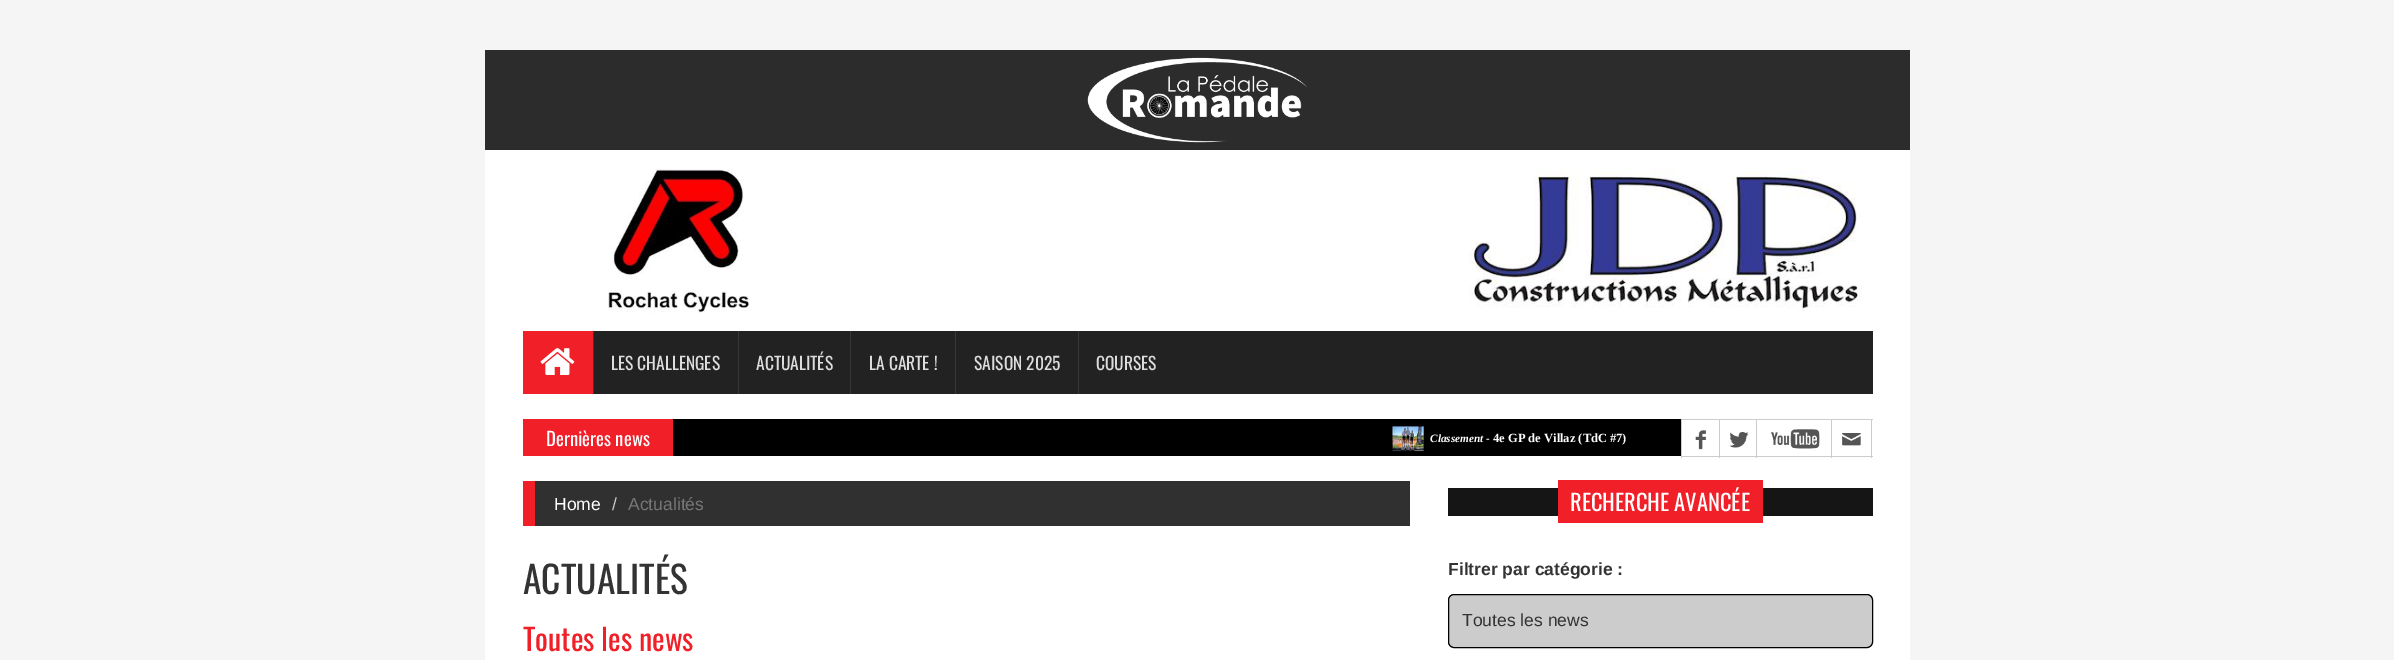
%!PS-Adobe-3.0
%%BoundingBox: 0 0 2394 660
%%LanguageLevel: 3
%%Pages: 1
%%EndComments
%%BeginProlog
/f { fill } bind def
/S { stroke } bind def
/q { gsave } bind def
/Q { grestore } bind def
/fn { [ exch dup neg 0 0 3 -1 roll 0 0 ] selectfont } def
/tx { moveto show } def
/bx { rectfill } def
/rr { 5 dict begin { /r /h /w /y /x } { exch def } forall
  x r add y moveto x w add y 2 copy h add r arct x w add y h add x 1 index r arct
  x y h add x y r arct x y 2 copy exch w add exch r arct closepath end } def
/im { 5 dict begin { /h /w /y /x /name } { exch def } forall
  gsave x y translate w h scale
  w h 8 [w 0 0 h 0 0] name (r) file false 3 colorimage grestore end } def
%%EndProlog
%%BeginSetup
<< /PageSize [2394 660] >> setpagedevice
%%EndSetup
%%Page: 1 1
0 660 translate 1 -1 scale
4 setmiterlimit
0.961 setgray
0 0 2394 660 bx
0.173 setgray
485 50 1425 100 bx
(image0.raw) 1087 57 220 86 im
1 setgray
485 150 1425 510 bx
(image1.raw) 608 169 141 144 im
(image2.raw) 1469 169 393 143 im
0.133 setgray
594 331 1279 63 bx
0.941 0.122 0.157 setrgbcolor
523 331 70 63 bx
(image3.raw) 540 348 35 27 im
0.22 setgray
593 331 1 63 bx
/Oswald-Regular 17.5 fn
0.867 setgray
(LES CHALLENGES) 611 370 tx
0.22 setgray
738 331 1 63 bx
0.867 setgray
(ACTUALITÉS) 756 370 tx
0.22 setgray
850 331 1 63 bx
0.867 setgray
(LA CARTE !) 869 370 tx
0.22 setgray
955 331 1 63 bx
0.867 setgray
(SAISON 2025) 974 370 tx
0.22 setgray
1078 331 1 63 bx
0.867 setgray
(COURSES) 1096 370 tx
0 setgray
673 419 1008 37 bx
0.941 0.122 0.157 setrgbcolor
523 419 150 37 bx
/Oswald-Regular 18.75 fn
1 setgray
(Dernières news) 546 446 tx
(image4.raw) 1392 426 32 26 im
/LiberationSerif-BoldItalic 11.25 fn
(Classement -) 1430 442 tx
/LiberationSerif-Bold 12.5 fn
(4e GP de Villaz \(TdC #7\)) 1493 442 tx
0.8 setgray
1681 419 192 1 bx
1871 419 1 39 bx
1681 456 192 1 bx
(image5.raw) 1695 430 12 20 im
1681 420 1 38 bx
(image6.raw) 1729 432 20 16 im
1719 420 1 38 bx
(image7.raw) 1771 429 49 20 im
1756 420 1 38 bx
(image8.raw) 1842 433 19 13 im
1831 420 1 38 bx
0.188 setgray
535 481 875 45 bx
0.941 0.122 0.157 setrgbcolor
523 481 12 45 bx
/LiberationSans-Regular 17.5 fn
1 setgray
(Home) 554 510 tx
0.8 setgray
(/) 612 510 tx
0.467 setgray
(Actualités) 628 510 tx
/Oswald-Regular 37.5 fn
0.2 setgray
(ACTUALITÉS) 523 594 tx
/Oswald-Regular 30 fn
0.941 0.122 0.157 setrgbcolor
(Toutes les news) 523 651 tx
0.082 setgray
1448 488 425 28 bx
0.941 0.122 0.157 setrgbcolor
1558 480 205 43 bx
/Oswald-Regular 22.5 fn
1 setgray
(RECHERCHE AVANCÉE) 1570 511 tx
/LiberationSans-Bold 17.5 fn
0.2 setgray
(Filtrer par catégorie :) 1448 575 tx
0.8 setgray
1448.5 594.5 424 53 5.5 rr q f Q
0 setgray
S
/LiberationSans-Regular 17.5 fn
0.2 setgray
(Toutes les news) 1462 626 tx
showpage
%%EOF
